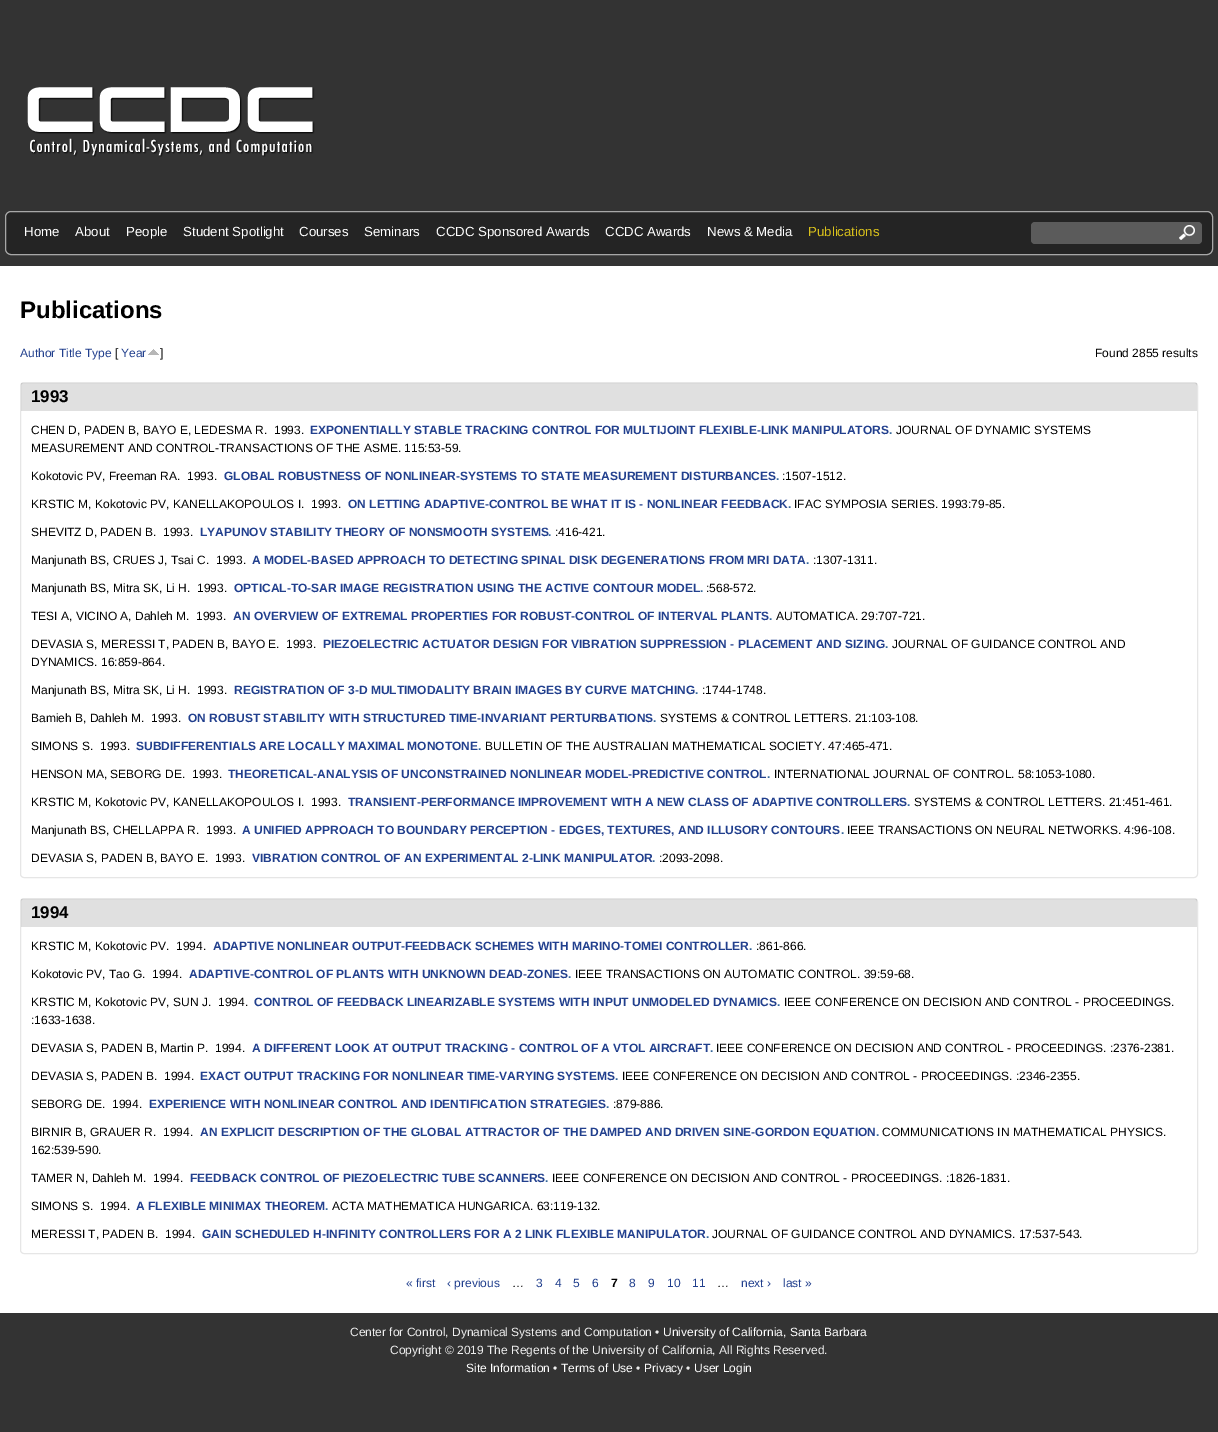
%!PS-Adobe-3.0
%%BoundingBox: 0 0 1218 1432
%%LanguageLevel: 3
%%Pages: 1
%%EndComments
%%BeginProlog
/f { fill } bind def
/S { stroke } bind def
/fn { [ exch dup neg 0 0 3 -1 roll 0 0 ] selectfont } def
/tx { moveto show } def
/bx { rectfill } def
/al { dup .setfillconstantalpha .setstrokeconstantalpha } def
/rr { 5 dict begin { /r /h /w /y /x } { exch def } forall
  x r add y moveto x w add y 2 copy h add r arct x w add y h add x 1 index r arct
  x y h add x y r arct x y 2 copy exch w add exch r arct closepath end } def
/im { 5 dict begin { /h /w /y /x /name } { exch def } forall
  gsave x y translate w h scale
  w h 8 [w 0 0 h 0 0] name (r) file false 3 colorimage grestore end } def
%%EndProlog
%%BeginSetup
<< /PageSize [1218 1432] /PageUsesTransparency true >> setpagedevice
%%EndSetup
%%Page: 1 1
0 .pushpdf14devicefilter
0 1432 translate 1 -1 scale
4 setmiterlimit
0.2 setgray
0 0 1218 1432 bx
(image0.raw) 27 87 288 70 im
0.141 setgray
5 211 1208 44 6 rr f
0.6 al
1 setgray
5.5 211.5 1207 43 5.5 rr S
/LiberationSans-Regular 13.25 fn
1 al
(Home) 24 236 tx
(About) 75 236 tx
(People) 126 236 tx
(Student Spotlight) 183 236 tx
(Courses) 299 236 tx
(Seminars) 364 236 tx
(CCDC Sponsored Awards) 436 236 tx
(CCDC Awards) 605 236 tx
(News & Media) 707 236 tx
0.847 0.753 0.106 setrgbcolor
(Publications) 808 236 tx
0.357 setgray
1031 222 171 22 4 rr f
(image1.raw) 1179 225 16 15 im
1 setgray
0 266 1218 1047 bx
/LiberationSans-Bold 24 fn
0 setgray
(Publications) 20 318 tx
/LiberationSans-Regular 12 fn
0.129 0.247 0.553 setrgbcolor
(Author Title Type) 20 357 tx
0 setgray
([) 115 357 tx
0.129 0.247 0.553 setrgbcolor
(Year) 121 357 tx
(image2.raw) 148 349 11 6 im
0 setgray
(]) 160 357 tx
(Found 2855 results) 1095 357 tx
0.902 setgray
20.5 382.5 1177 495 3.5 rr S
0.12 al
0 setgray
21 383 1176 28 bx
/LiberationSans-Bold 17 fn
1 al
(1993) 31 402 tx
/LiberationSans-Regular 12 fn
(CHEN D, PADEN B, BAYO E, LEDESMA R.) 31 434 tx
(1993.) 274 434 tx
/LiberationSans-Bold 12 fn
0.129 0.247 0.553 setrgbcolor
(EXPONENTIALLY STABLE TRACKING CONTROL FOR MULTIJOINT FLEXIBLE-LINK MANIPULATORS) 310 434 tx
0.2 0.396 0.6 setrgbcolor
(.) 889 434 tx
/LiberationSans-Regular 12 fn
0 setgray
(JOURNAL OF DYNAMIC SYSTEMS) 896 434 tx
(MEASUREMENT AND CONTROL-TRANSACTIONS OF THE ASME. 115:53-59.) 31 452 tx
(Kokotovic PV, Freeman RA.) 31 480 tx
(1993.) 187 480 tx
/LiberationSans-Bold 12 fn
0.129 0.247 0.553 setrgbcolor
(GLOBAL ROBUSTNESS OF NONLINEAR-SYSTEMS TO STATE MEASUREMENT DISTURBANCES) 224 480 tx
0.2 0.396 0.6 setrgbcolor
(.) 776 480 tx
/LiberationSans-Regular 12 fn
0 setgray
(:1507-1512.) 782 480 tx
(KRSTIC M, Kokotovic PV, KANELLAKOPOULOS I.) 31 508 tx
(1993.) 311 508 tx
/LiberationSans-Bold 12 fn
0.129 0.247 0.553 setrgbcolor
(ON LETTING ADAPTIVE-CONTROL BE WHAT IT IS - NONLINEAR FEEDBACK) 348 508 tx
0.2 0.396 0.6 setrgbcolor
(.) 788 508 tx
/LiberationSans-Regular 12 fn
0 setgray
(IFAC SYMPOSIA SERIES. 1993:79-85.) 794 508 tx
(SHEVITZ D, PADEN B.) 31 536 tx
(1993.) 163 536 tx
/LiberationSans-Bold 12 fn
0.129 0.247 0.553 setrgbcolor
(LYAPUNOV STABILITY THEORY OF NONSMOOTH SYSTEMS) 200 536 tx
0.2 0.396 0.6 setrgbcolor
(.) 548 536 tx
/LiberationSans-Regular 12 fn
0 setgray
(:416-421.) 555 536 tx
(Manjunath BS, CRUES J, Tsai C.) 31 564 tx
(1993.) 216 564 tx
/LiberationSans-Bold 12 fn
0.129 0.247 0.553 setrgbcolor
(A MODEL-BASED APPROACH TO DETECTING SPINAL DISK DEGENERATIONS FROM MRI DATA) 252 564 tx
0.2 0.396 0.6 setrgbcolor
(.) 806 564 tx
/LiberationSans-Regular 12 fn
0 setgray
(:1307-1311.) 813 564 tx
(Manjunath BS, Mitra SK, Li H.) 31 592 tx
(1993.) 197 592 tx
/LiberationSans-Bold 12 fn
0.129 0.247 0.553 setrgbcolor
(OPTICAL-TO-SAR IMAGE REGISTRATION USING THE ACTIVE CONTOUR MODEL) 234 592 tx
0.2 0.396 0.6 setrgbcolor
(.) 700 592 tx
/LiberationSans-Regular 12 fn
0 setgray
(:568-572.) 706 592 tx
(TESI A, VICINO A, Dahleh M.) 31 620 tx
(1993.) 196 620 tx
/LiberationSans-Bold 12 fn
0.129 0.247 0.553 setrgbcolor
(AN OVERVIEW OF EXTREMAL PROPERTIES FOR ROBUST-CONTROL OF INTERVAL PLANTS) 233 620 tx
0.2 0.396 0.6 setrgbcolor
(.) 769 620 tx
/LiberationSans-Regular 12 fn
0 setgray
(AUTOMATICA. 29:707-721.) 776 620 tx
(DEVASIA S, MERESSI T, PADEN B, BAYO E.) 31 648 tx
(1993.) 286 648 tx
/LiberationSans-Bold 12 fn
0.129 0.247 0.553 setrgbcolor
(PIEZOELECTRIC ACTUATOR DESIGN FOR VIBRATION SUPPRESSION - PLACEMENT AND SIZING) 323 648 tx
0.2 0.396 0.6 setrgbcolor
(.) 885 648 tx
/LiberationSans-Regular 12 fn
0 setgray
(JOURNAL OF GUIDANCE CONTROL AND) 892 648 tx
(DYNAMICS. 16:859-864.) 31 666 tx
(Manjunath BS, Mitra SK, Li H.) 31 694 tx
(1993.) 197 694 tx
/LiberationSans-Bold 12 fn
0.129 0.247 0.553 setrgbcolor
(REGISTRATION OF 3-D MULTIMODALITY BRAIN IMAGES BY CURVE MATCHING) 234 694 tx
0.2 0.396 0.6 setrgbcolor
(.) 695 694 tx
/LiberationSans-Regular 12 fn
0 setgray
(:1744-1748.) 702 694 tx
(Bamieh B, Dahleh M.) 31 722 tx
(1993.) 151 722 tx
/LiberationSans-Bold 12 fn
0.129 0.247 0.553 setrgbcolor
(ON ROBUST STABILITY WITH STRUCTURED TIME-INVARIANT PERTURBATIONS) 188 722 tx
0.2 0.396 0.6 setrgbcolor
(.) 653 722 tx
/LiberationSans-Regular 12 fn
0 setgray
(SYSTEMS & CONTROL LETTERS. 21:103-108.) 660 722 tx
(SIMONS S.) 31 750 tx
(1993.) 100 750 tx
/LiberationSans-Bold 12 fn
0.129 0.247 0.553 setrgbcolor
(SUBDIFFERENTIALS ARE LOCALLY MAXIMAL MONOTONE) 136 750 tx
0.2 0.396 0.6 setrgbcolor
(.) 478 750 tx
/LiberationSans-Regular 12 fn
0 setgray
(BULLETIN OF THE AUSTRALIAN MATHEMATICAL SOCIETY. 47:465-471.) 485 750 tx
(HENSON MA, SEBORG DE.) 31 778 tx
(1993.) 192 778 tx
/LiberationSans-Bold 12 fn
0.129 0.247 0.553 setrgbcolor
(THEORETICAL-ANALYSIS OF UNCONSTRAINED NONLINEAR MODEL-PREDICTIVE CONTROL) 228 778 tx
0.2 0.396 0.6 setrgbcolor
(.) 767 778 tx
/LiberationSans-Regular 12 fn
0 setgray
(INTERNATIONAL JOURNAL OF CONTROL. 58:1053-1080.) 774 778 tx
(KRSTIC M, Kokotovic PV, KANELLAKOPOULOS I.) 31 806 tx
(1993.) 311 806 tx
/LiberationSans-Bold 12 fn
0.129 0.247 0.553 setrgbcolor
(TRANSIENT-PERFORMANCE IMPROVEMENT WITH A NEW CLASS OF ADAPTIVE CONTROLLERS) 348 806 tx
0.2 0.396 0.6 setrgbcolor
(.) 907 806 tx
/LiberationSans-Regular 12 fn
0 setgray
(SYSTEMS & CONTROL LETTERS. 21:451-461.) 914 806 tx
(Manjunath BS, CHELLAPPA R.) 31 834 tx
(1993.) 206 834 tx
/LiberationSans-Bold 12 fn
0.129 0.247 0.553 setrgbcolor
(A UNIFIED APPROACH TO BOUNDARY PERCEPTION - EDGES, TEXTURES, AND ILLUSORY CONTOURS) 242 834 tx
0.2 0.396 0.6 setrgbcolor
(.) 841 834 tx
/LiberationSans-Regular 12 fn
0 setgray
(IEEE TRANSACTIONS ON NEURAL NETWORKS. 4:96-108.) 847 834 tx
(DEVASIA S, PADEN B, BAYO E.) 31 862 tx
(1993.) 215 862 tx
/LiberationSans-Bold 12 fn
0.129 0.247 0.553 setrgbcolor
(VIBRATION CONTROL OF AN EXPERIMENTAL 2-LINK MANIPULATOR) 252 862 tx
0.2 0.396 0.6 setrgbcolor
(.) 652 862 tx
/LiberationSans-Regular 12 fn
0 setgray
(:2093-2098.) 659 862 tx
0.902 setgray
20.5 898.5 1177 355 3.5 rr S
0.12 al
0 setgray
21 899 1176 28 bx
/LiberationSans-Bold 17 fn
1 al
(1994) 31 918 tx
/LiberationSans-Regular 12 fn
(KRSTIC M, Kokotovic PV.) 31 950 tx
(1994.) 176 950 tx
/LiberationSans-Bold 12 fn
0.129 0.247 0.553 setrgbcolor
(ADAPTIVE NONLINEAR OUTPUT-FEEDBACK SCHEMES WITH MARINO-TOMEI CONTROLLER) 213 950 tx
0.2 0.396 0.6 setrgbcolor
(.) 749 950 tx
/LiberationSans-Regular 12 fn
0 setgray
(:861-866.) 756 950 tx
(Kokotovic PV, Tao G.) 31 978 tx
(1994.) 152 978 tx
/LiberationSans-Bold 12 fn
0.129 0.247 0.553 setrgbcolor
(ADAPTIVE-CONTROL OF PLANTS WITH UNKNOWN DEAD-ZONES) 189 978 tx
0.2 0.396 0.6 setrgbcolor
(.) 568 978 tx
/LiberationSans-Regular 12 fn
0 setgray
(IEEE TRANSACTIONS ON AUTOMATIC CONTROL. 39:59-68.) 575 978 tx
(KRSTIC M, Kokotovic PV, SUN J.) 31 1006 tx
(1994.) 218 1006 tx
/LiberationSans-Bold 12 fn
0.129 0.247 0.553 setrgbcolor
(CONTROL OF FEEDBACK LINEARIZABLE SYSTEMS WITH INPUT UNMODELED DYNAMICS) 254 1006 tx
0.2 0.396 0.6 setrgbcolor
(.) 777 1006 tx
/LiberationSans-Regular 12 fn
0 setgray
(IEEE CONFERENCE ON DECISION AND CONTROL - PROCEEDINGS.) 784 1006 tx
(:1633-1638.) 31 1024 tx
(DEVASIA S, PADEN B, Martin P.) 31 1052 tx
(1994.) 215 1052 tx
/LiberationSans-Bold 12 fn
0.129 0.247 0.553 setrgbcolor
(A DIFFERENT LOOK AT OUTPUT TRACKING - CONTROL OF A VTOL AIRCRAFT) 252 1052 tx
0.2 0.396 0.6 setrgbcolor
(.) 710 1052 tx
/LiberationSans-Regular 12 fn
0 setgray
(IEEE CONFERENCE ON DECISION AND CONTROL - PROCEEDINGS. :2376-2381.) 716 1052 tx
(DEVASIA S, PADEN B.) 31 1080 tx
(1994.) 164 1080 tx
/LiberationSans-Bold 12 fn
0.129 0.247 0.553 setrgbcolor
(EXACT OUTPUT TRACKING FOR NONLINEAR TIME-VARYING SYSTEMS) 200 1080 tx
0.2 0.396 0.6 setrgbcolor
(.) 615 1080 tx
/LiberationSans-Regular 12 fn
0 setgray
(IEEE CONFERENCE ON DECISION AND CONTROL - PROCEEDINGS. :2346-2355.) 622 1080 tx
(SEBORG DE.) 31 1108 tx
(1994.) 112 1108 tx
/LiberationSans-Bold 12 fn
0.129 0.247 0.553 setrgbcolor
(EXPERIENCE WITH NONLINEAR CONTROL AND IDENTIFICATION STRATEGIES) 149 1108 tx
0.2 0.396 0.6 setrgbcolor
(.) 606 1108 tx
/LiberationSans-Regular 12 fn
0 setgray
(:879-886.) 613 1108 tx
(BIRNIR B, GRAUER R.) 31 1136 tx
(1994.) 163 1136 tx
/LiberationSans-Bold 12 fn
0.129 0.247 0.553 setrgbcolor
(AN EXPLICIT DESCRIPTION OF THE GLOBAL ATTRACTOR OF THE DAMPED AND DRIVEN SINE-GORDON EQUATION) 200 1136 tx
0.2 0.396 0.6 setrgbcolor
(.) 876 1136 tx
/LiberationSans-Regular 12 fn
0 setgray
(COMMUNICATIONS IN MATHEMATICAL PHYSICS.) 882 1136 tx
(162:539-590.) 31 1154 tx
(TAMER N, Dahleh M.) 31 1182 tx
(1994.) 153 1182 tx
/LiberationSans-Bold 12 fn
0.129 0.247 0.553 setrgbcolor
(FEEDBACK CONTROL OF PIEZOELECTRIC TUBE SCANNERS) 190 1182 tx
0.2 0.396 0.6 setrgbcolor
(.) 545 1182 tx
/LiberationSans-Regular 12 fn
0 setgray
(IEEE CONFERENCE ON DECISION AND CONTROL - PROCEEDINGS. :1826-1831.) 552 1182 tx
(SIMONS S.) 31 1210 tx
(1994.) 100 1210 tx
/LiberationSans-Bold 12 fn
0.129 0.247 0.553 setrgbcolor
(A FLEXIBLE MINIMAX THEOREM) 136 1210 tx
0.2 0.396 0.6 setrgbcolor
(.) 325 1210 tx
/LiberationSans-Regular 12 fn
0 setgray
(ACTA MATHEMATICA HUNGARICA. 63:119-132.) 332 1210 tx
(MERESSI T, PADEN B.) 31 1238 tx
(1994.) 165 1238 tx
/LiberationSans-Bold 12 fn
0.129 0.247 0.553 setrgbcolor
(GAIN SCHEDULED H-INFINITY CONTROLLERS FOR A 2 LINK FLEXIBLE MANIPULATOR) 202 1238 tx
0.2 0.396 0.6 setrgbcolor
(.) 706 1238 tx
/LiberationSans-Regular 12 fn
0 setgray
(JOURNAL OF GUIDANCE CONTROL AND DYNAMICS. 17:537-543.) 712 1238 tx
0.129 0.247 0.553 setrgbcolor
(« first) 406 1287 tx
(‹ previous) 447 1287 tx
0 setgray
(…) 512 1287 tx
0.129 0.247 0.553 setrgbcolor
(3) 536 1287 tx
(4) 555 1287 tx
(5) 573 1287 tx
(6) 592 1287 tx
/LiberationSans-Bold 12 fn
0 setgray
(7) 611 1287 tx
/LiberationSans-Regular 12 fn
0.129 0.247 0.553 setrgbcolor
(8) 629 1287 tx
(9) 648 1287 tx
(10) 667 1287 tx
(11) 692 1287 tx
0 setgray
(…) 717 1287 tx
0.129 0.247 0.553 setrgbcolor
(next ›) 741 1287 tx
(last ») 783 1287 tx
0.933 setgray
(Center for Control, Dynamical Systems and Computation •) 350 1336 tx
1 setgray
(University of California, Santa Barbara) 663 1336 tx
0.933 setgray
(Copyright © 2019 The Regents of the University of California, All Rights Reserved.) 390 1354 tx
1 setgray
(Site Information) 466 1372 tx
0.933 setgray
(•) 553 1372 tx
1 setgray
(Terms of Use) 561 1372 tx
0.933 setgray
(•) 636 1372 tx
1 setgray
(Privacy) 644 1372 tx
0.933 setgray
(•) 686 1372 tx
1 setgray
(User Login) 694 1372 tx
.poppdf14devicefilter showpage
%%EOF
